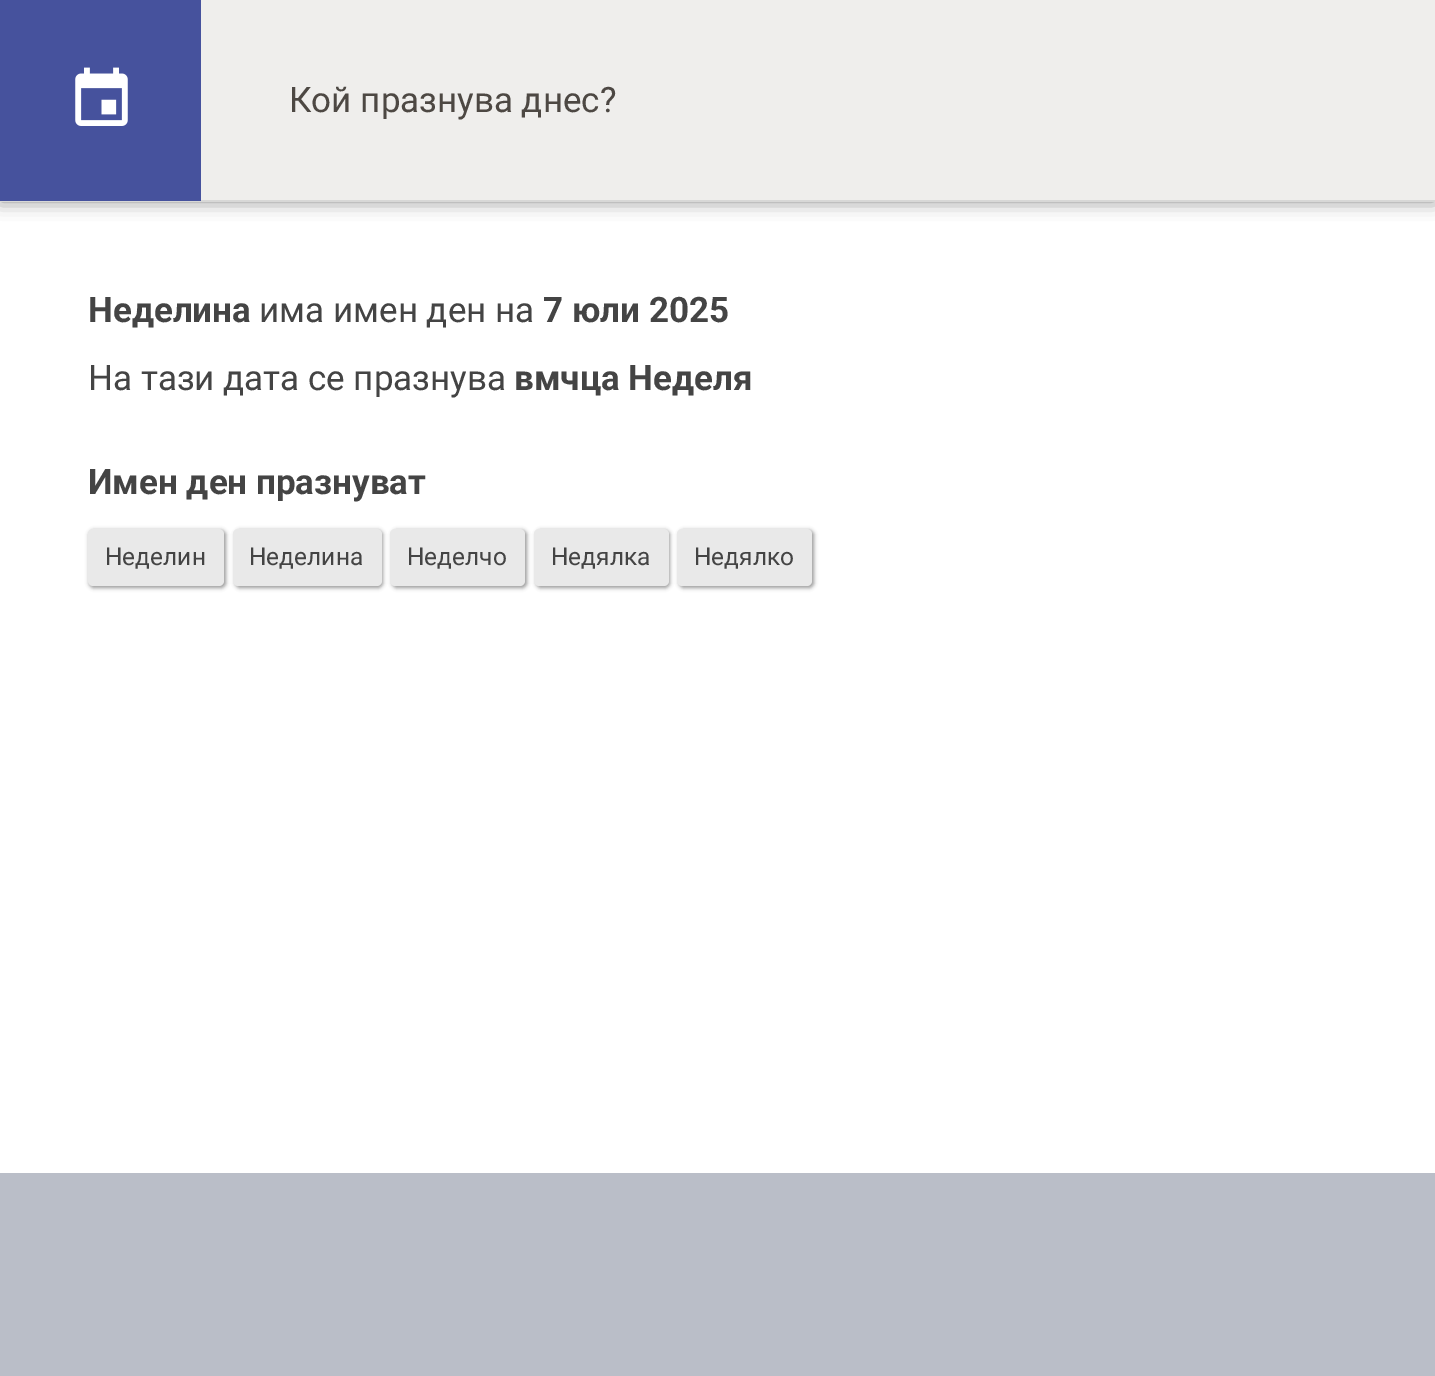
%!PS-Adobe-3.0
%%BoundingBox: 0 0 1435 1376
%%LanguageLevel: 3
%%Pages: 1
%%EndComments
%%BeginProlog
/f { fill } bind def
/fn { [ exch dup neg 0 0 3 -1 roll 0 0 ] selectfont } def
/tx { moveto show } def
/bx { rectfill } def
/al { dup .setfillconstantalpha .setstrokeconstantalpha } def
/rr { 5 dict begin { /r /h /w /y /x } { exch def } forall
  x r add y moveto x w add y 2 copy h add r arct x w add y h add x 1 index r arct
  x y h add x y r arct x y 2 copy exch w add exch r arct closepath end } def
/sh { 12 dict begin { /a /b /q /h /w /y /x } { exch def } forall gsave /was 0 def
  9 -2 -9 { dup b mul 4 div /e exch def 1 sub .425 mul 2.718 exch exp 1 add a .99 .min exch div /now exch def
    1 1 now sub 1 was sub div sub al /was now def
    w h .min e 2 mul add 0 gt { x e sub y e sub w e 2 mul add h e 2 mul add
      q e add b .6 mul add w h .min 2 div e add .min 0 .max rr fill } if } for grestore end } def
/im { 5 dict begin { /h /w /y /x /name } { exch def } forall
  gsave x y translate w h scale
  w h 8 [w 0 0 h 0 0] name (r) file false 3 colorimage grestore end } def
%%EndProlog
%%BeginSetup
<< /PageSize [1435 1376] /PageUsesTransparency true >> setpagedevice
%%EndSetup
%%Page: 1 1
0 .pushpdf14devicefilter
0 1376 translate 1 -1 scale
4 setmiterlimit
0.729 0.745 0.784 setrgbcolor
0 0 1435 1376 bx
1 setgray
0 202 1435 971 bx
0 setgray
0 0 1435 201 0 9 0.5 sh
0.937 0.933 0.925 setrgbcolor
201 0 1234 200 bx
0.847 0.847 0.843 setrgbcolor
0 200 1435 2 bx
0.275 0.322 0.616 setrgbcolor
0 0 201 201 bx
(image0.raw) 75 67 53 59 im
/Roboto-Regular 35 fn
0.302 0.282 0.263 setrgbcolor
(Кой празнува днес?) 289 112 tx
/Roboto-Bold 35 fn
0.267 setgray
(Неделина) 88 322 tx
/Roboto-Regular 35 fn
(има имен ден на) 259 322 tx
/Roboto-Bold 35 fn
(7 юли 2025) 543 322 tx
/Roboto-Regular 35 fn
(На тази дата се празнува) 88 390 tx
/Roboto-Bold 35 fn
(вмчца Неделя) 514 390 tx
(Имен ден празнуват) 88 494 tx
0.6 setgray
89 530 137 58 5 2 1 sh
0.914 setgray
88 529 136 57 5 rr f
/Roboto-Regular 24.5 fn
0.267 setgray
(Неделин) 105 565 tx
0.6 setgray
235 530 148 58 5 2 1 sh
0.914 setgray
233 529 149 57 5 rr f
0.267 setgray
(Неделина) 249 565 tx
0.6 setgray
392 530 135 58 5 2 1 sh
0.914 setgray
390 529 135 57 5 rr f
0.267 setgray
(Неделчо) 407 565 tx
0.6 setgray
536 530 134 58 5 2 1 sh
0.914 setgray
534 529 135 57 5 rr f
0.267 setgray
(Недялка) 551 565 tx
0.6 setgray
679 530 135 58 5 2 1 sh
0.914 setgray
677 529 135 57 5 rr f
0.267 setgray
(Недялко) 694 565 tx
.poppdf14devicefilter showpage
%%EOF
